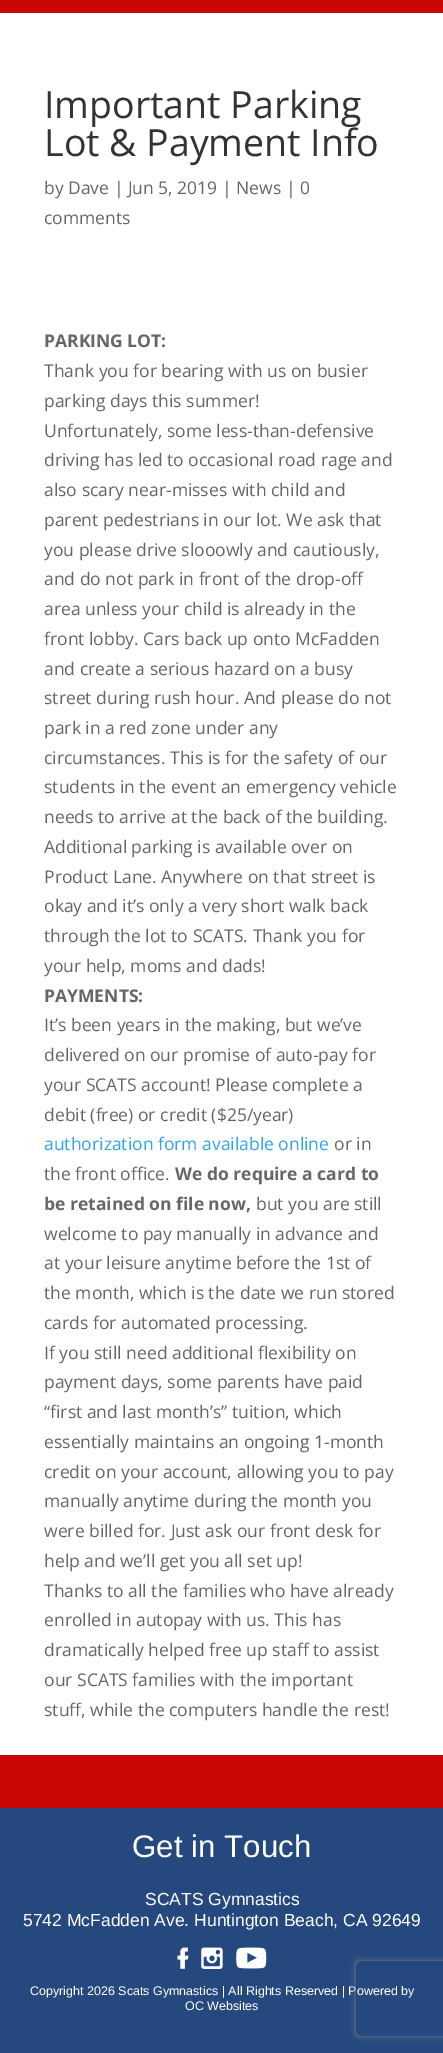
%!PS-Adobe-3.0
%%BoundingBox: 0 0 443 2053
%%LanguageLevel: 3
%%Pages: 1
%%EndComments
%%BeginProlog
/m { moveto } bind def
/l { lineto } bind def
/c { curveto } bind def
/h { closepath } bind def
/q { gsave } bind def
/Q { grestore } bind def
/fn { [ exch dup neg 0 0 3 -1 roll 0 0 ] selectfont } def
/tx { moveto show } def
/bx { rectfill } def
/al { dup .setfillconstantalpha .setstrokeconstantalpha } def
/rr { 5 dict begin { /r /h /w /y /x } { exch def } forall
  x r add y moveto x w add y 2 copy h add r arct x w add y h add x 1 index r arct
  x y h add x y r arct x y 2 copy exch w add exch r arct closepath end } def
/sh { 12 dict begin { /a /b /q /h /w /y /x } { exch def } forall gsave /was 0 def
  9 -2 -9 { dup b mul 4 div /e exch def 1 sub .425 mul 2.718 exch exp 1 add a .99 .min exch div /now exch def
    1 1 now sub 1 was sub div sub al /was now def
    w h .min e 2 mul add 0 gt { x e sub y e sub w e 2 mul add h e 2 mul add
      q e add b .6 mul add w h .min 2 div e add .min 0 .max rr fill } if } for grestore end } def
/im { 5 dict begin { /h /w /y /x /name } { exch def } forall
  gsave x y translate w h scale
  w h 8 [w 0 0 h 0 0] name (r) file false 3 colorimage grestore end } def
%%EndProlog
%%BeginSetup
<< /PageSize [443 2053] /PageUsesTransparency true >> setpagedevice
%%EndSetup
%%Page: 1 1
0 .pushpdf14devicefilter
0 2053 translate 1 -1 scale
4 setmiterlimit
0.796 0.027 0.024 setrgbcolor
0 0 443 2053 bx
1 setgray
0 13 443 1742 bx
/OpenSans-Regular 37.5 fn
0.2 setgray
(Important Parking) 44 118 tx
(Lot & Payment Info) 44 156 tx
/OpenSans-Regular 17.5 fn
0.4 setgray
(by Dave | Jun 5, 2019 | News | 0) 44 194 tx
(comments) 44 224 tx
/OpenSans-Bold 17.5 fn
(PARKING LOT:) 44 347 tx
/OpenSans-Regular 17.5 fn
(Thank you for bearing with us on busier) 44 377 tx
(parking days this summer!) 44 407 tx
(Unfortunately, some less-than-defensive) 44 437 tx
(driving has led to occasional road rage and) 44 466 tx
(also scary near-misses with child and) 44 496 tx
(parent pedestrians in our lot. We ask that) 44 526 tx
(you please drive slooowly and cautiously,) 44 556 tx
(and do not park in front of the drop-off) 44 585 tx
(area unless your child is already in the) 44 615 tx
(front lobby. Cars back up onto McFadden) 44 645 tx
(and create a serious hazard on a busy) 44 675 tx
(street during rush hour. And please do not) 44 704 tx
(park in a red zone under any) 44 734 tx
(circumstances. This is for the safety of our) 44 764 tx
(students in the event an emergency vehicle) 44 793 tx
(needs to arrive at the back of the building.) 44 823 tx
(Additional parking is available over on) 44 853 tx
(Product Lane. Anywhere on that street is) 44 883 tx
(okay and it’s only a very short walk back) 44 912 tx
(through the lot to SCATS. Thank you for) 44 942 tx
(your help, moms and dads!) 44 972 tx
/OpenSans-Bold 17.5 fn
(PAYMENTS:) 44 1002 tx
/OpenSans-Regular 17.5 fn
(It’s been years in the making, but we’ve) 44 1031 tx
(delivered on our promise of auto-pay for) 44 1061 tx
(your SCATS account! Please complete a) 44 1091 tx
(debit \(free\) or credit \($25/year\)) 44 1121 tx
0.18 0.639 0.949 setrgbcolor
(authorization form available online) 44 1150 tx
0.4 setgray
(or in) 334 1150 tx
(the front office.) 44 1180 tx
/OpenSans-Bold 17.5 fn
(We do require a card to) 175 1180 tx
(be retained on file now,) 44 1210 tx
/OpenSans-Regular 17.5 fn
(but you are still) 256 1210 tx
(welcome to pay manually in advance and) 44 1240 tx
(at your leisure anytime before the 1st of) 44 1269 tx
(the month, which is the date we run stored) 44 1299 tx
(cards for automated processing.) 44 1329 tx
(If you still need additional flexibility on) 44 1359 tx
(payment days, some parents have paid) 44 1388 tx
(“first and last month’s” tuition, which) 44 1418 tx
(essentially maintains an ongoing 1-month) 44 1448 tx
(credit on your account, allowing you to pay) 44 1478 tx
(manually anytime during the month you) 44 1507 tx
(were billed for. Just ask our front desk for) 44 1537 tx
(help and we’ll get you all set up!) 44 1567 tx
(Thanks to all the families who have already) 44 1597 tx
(enrolled in autopay with us. This has) 44 1626 tx
(dramatically helped free up staff to assist) 44 1656 tx
(our SCATS families with the important) 44 1686 tx
(stuff, while the computers handle the rest!) 44 1716 tx
0.145 0.282 0.498 setrgbcolor
0 1808 443 245 bx
/LiberationSans-Regular 31.25 fn
1 setgray
(Get in Touch) 132 1857 tx
/LiberationSans-Regular 17.5 fn
(SCATS Gymnastics) 145 1905 tx
(5742 McFadden Ave. Huntington Beach, CA 92649) 23 1926 tx
(image0.raw) 177 1947 12 22 im
(image1.raw) 201 1947 22 22 im
(image2.raw) 236 1947 31 22 im
/LiberationSans-Regular 12.5 fn
(Copyright 2026 Scats Gymnastics | All Rights Reserved | Powered by) 30 1995 tx
(OC Websites) 185 2010 tx
q
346 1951 m 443 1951 l 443 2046 l 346 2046 l h 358.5 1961 m 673.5 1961 l 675 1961 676 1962 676 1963.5 c 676 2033.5 l 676 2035 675 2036 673.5 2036 c 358.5 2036 l 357 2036 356 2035 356 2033.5 c 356 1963.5 l 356 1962 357 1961 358.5 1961 c h eoclip newpath
0.502 setgray
356 1961 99 75 2.5 3 1 sh
Q
.poppdf14devicefilter showpage
%%EOF
